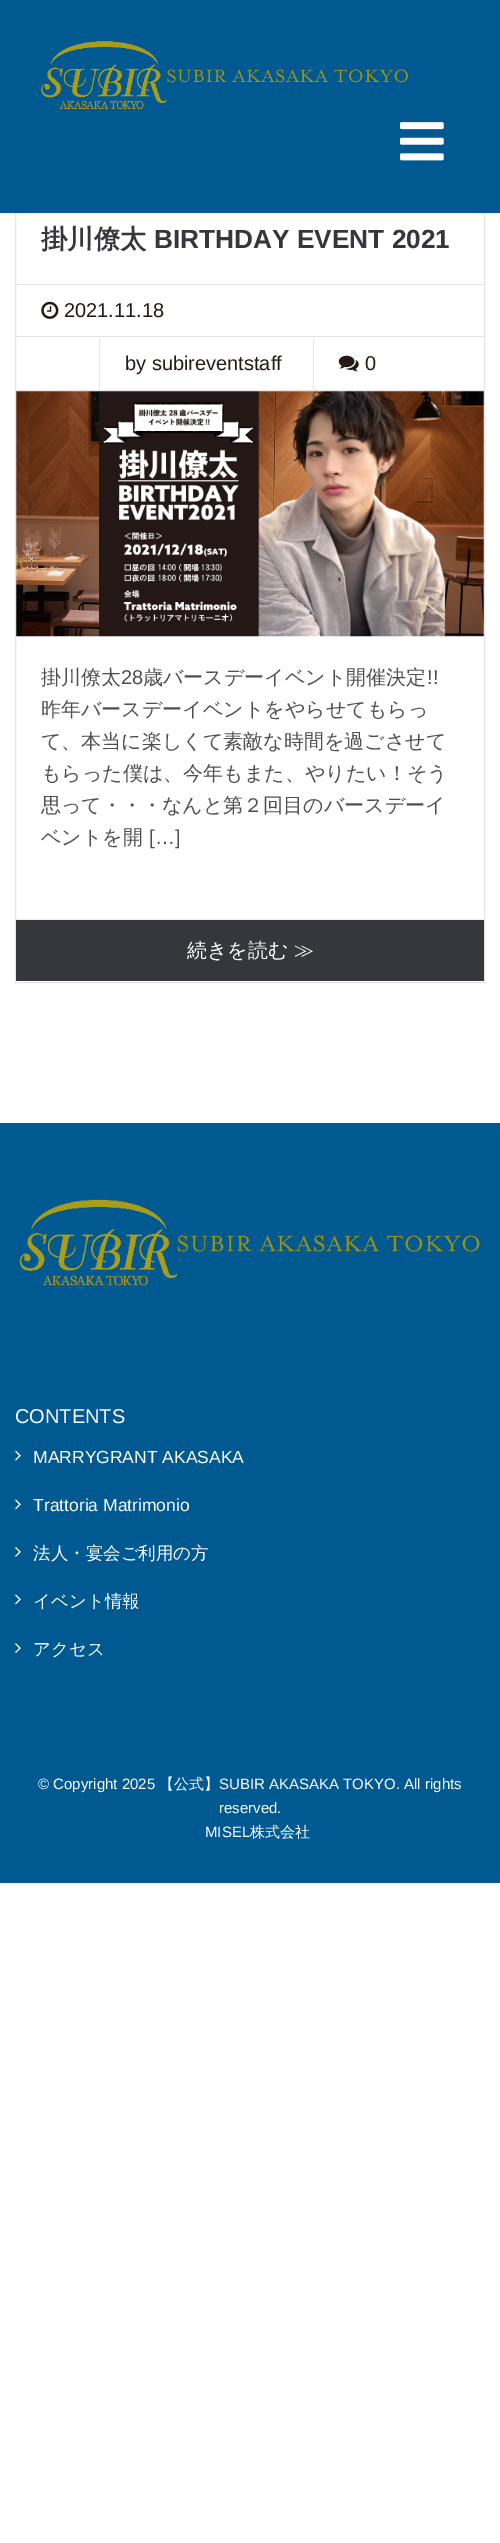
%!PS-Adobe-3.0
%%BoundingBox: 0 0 500 2543
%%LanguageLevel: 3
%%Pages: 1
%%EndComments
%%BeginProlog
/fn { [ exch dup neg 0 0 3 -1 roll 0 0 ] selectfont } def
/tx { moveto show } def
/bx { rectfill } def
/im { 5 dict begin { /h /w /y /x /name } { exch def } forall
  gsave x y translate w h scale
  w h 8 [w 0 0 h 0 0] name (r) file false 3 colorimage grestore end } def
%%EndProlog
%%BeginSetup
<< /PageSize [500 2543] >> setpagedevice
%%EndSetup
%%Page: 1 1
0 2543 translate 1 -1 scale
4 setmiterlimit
1 setgray
0 0 500 2543 bx
0.898 setgray
15.5 130.5 469 852 rectstroke
0 0.349 0.565 setrgbcolor
0 0 500 213 bx
(image0.raw) 41 41 367 68 im
(image1.raw) 400 122 44 39 im
0.898 setgray
16 284 468 1 bx
/WenQuanYiZenHei-Bold 26.25 fn
0.212 0.216 0.235 setrgbcolor
(掛川僚太) 41 248 tx
/LiberationSans-Bold 26.25 fn
(BIRTHDAY EVENT 2021) 154 248 tx
0.898 setgray
16 390 468 1 bx
16 336 468 1 bx
(image2.raw) 41 301 18 18 im
/LiberationSans-Regular 20 fn
0.141 0.098 0.075 setrgbcolor
(2021.11.18) 64 317 tx
0.898 setgray
99 338 1 52 bx
0.141 0.098 0.075 setrgbcolor
(by subireventstaff) 125 370 tx
0.898 setgray
313 338 1 52 bx
(image3.raw) 338 355 21 17 im
0.141 0.098 0.075 setrgbcolor
(0) 365 370 tx
(image4.raw) 16 391 468 246 im
/WenQuanYiZenHei-Medium 20 fn
0.306 setgray
(掛川僚太) 41 684 tx
/LiberationSans-Regular 20 fn
(28) 121 684 tx
/WenQuanYiZenHei-Medium 20 fn
(歳バースデーイベント開催決定) 143 684 tx
/LiberationSans-Regular 20 fn
(!!) 427 684 tx
/WenQuanYiZenHei-Medium 20 fn
(昨年バースデーイベントをやらせてもらっ) 41 716 tx
(て、本当に楽しくて素敵な時間を過ごさせて) 41 748 tx
(もらった僕は、今年もまた、やりたい！そう) 41 780 tx
(思って・・・なんと第２回目のバースデーイ) 41 812 tx
(ベントを開) 41 844 tx
/LiberationSans-Regular 20 fn
([…]) 149 844 tx
0.933 setgray
16 919 468 1 bx
0.212 0.216 0.235 setrgbcolor
16 920 468 61 bx
/WenQuanYiZenHei-Medium 20 fn
1 setgray
(続きを読む ≫) 187 957 tx
0 0.349 0.565 setrgbcolor
0 1123 500 760 bx
(image5.raw) 19 1199 461 87 im
/LiberationSans-Regular 20 fn
1 setgray
(CONTENTS) 15 1423 tx
(image6.raw) 15 1450 6 11 im
/LiberationSans-Regular 17.5 fn
(MARRYGRANT AKASAKA) 33 1463 tx
(image7.raw) 15 1499 6 11 im
(Trattoria Matrimonio) 33 1511 tx
(image8.raw) 15 1547 6 10 im
/WenQuanYiZenHei-Medium 17.5 fn
(法人・宴会ご利用の方) 33 1559 tx
(image7.raw) 15 1594 6 11 im
(イベント情報) 33 1607 tx
(image9.raw) 15 1643 6 10 im
(アクセス) 33 1655 tx
/LiberationSans-Regular 15 fn
(© Copyright 2025) 38 1789 tx
/WenQuanYiZenHei-Medium 15 fn
(【公式】) 159 1789 tx
/LiberationSans-Regular 15 fn
(SUBIR AKASAKA TOKYO. All rights) 219 1789 tx
(reserved.) 219 1813 tx
(MISEL) 205 1837 tx
/WenQuanYiZenHei-Medium 15 fn
(株式会社) 250 1837 tx
showpage
%%EOF
